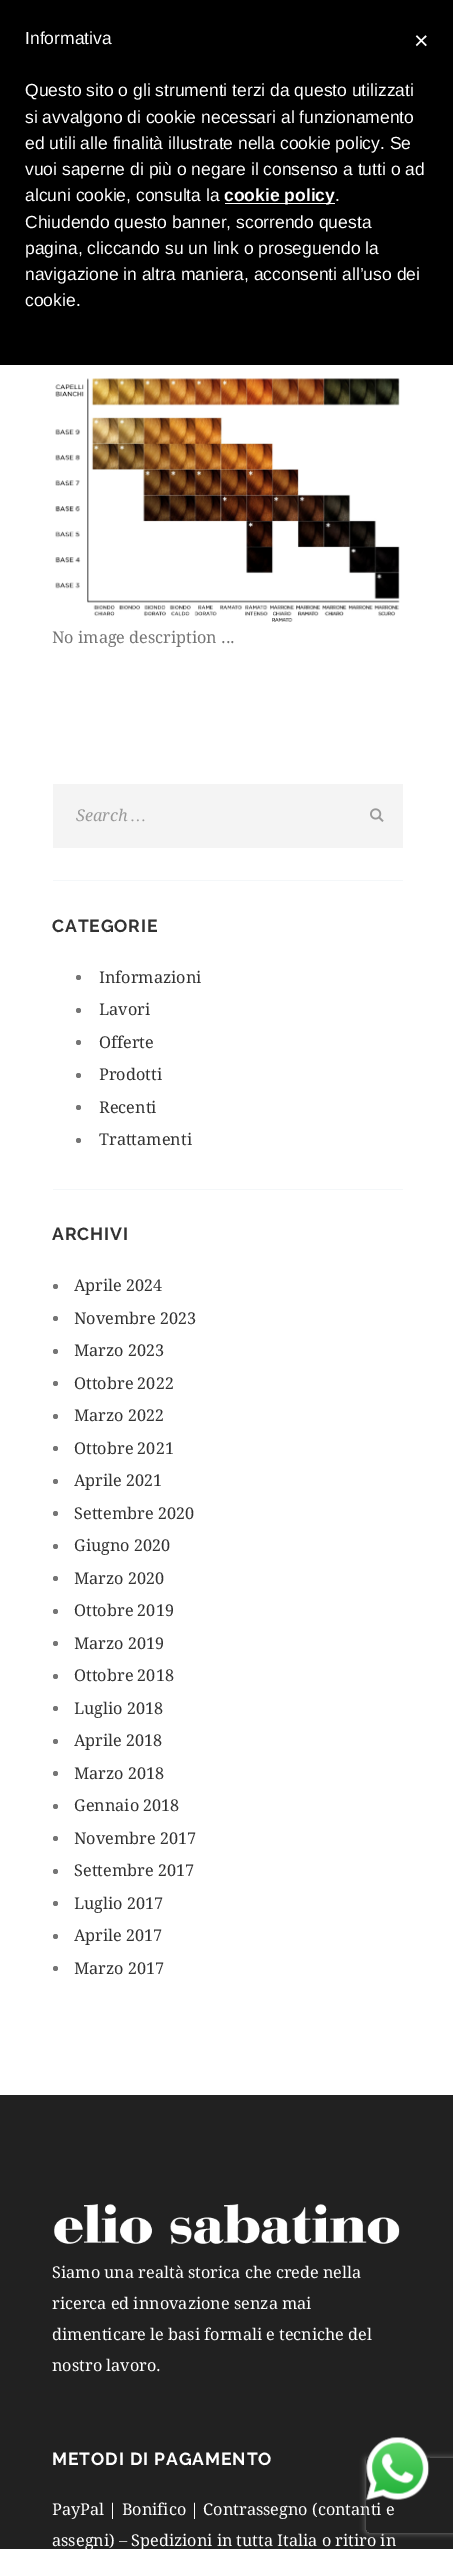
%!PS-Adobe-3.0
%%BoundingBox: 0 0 453 2549
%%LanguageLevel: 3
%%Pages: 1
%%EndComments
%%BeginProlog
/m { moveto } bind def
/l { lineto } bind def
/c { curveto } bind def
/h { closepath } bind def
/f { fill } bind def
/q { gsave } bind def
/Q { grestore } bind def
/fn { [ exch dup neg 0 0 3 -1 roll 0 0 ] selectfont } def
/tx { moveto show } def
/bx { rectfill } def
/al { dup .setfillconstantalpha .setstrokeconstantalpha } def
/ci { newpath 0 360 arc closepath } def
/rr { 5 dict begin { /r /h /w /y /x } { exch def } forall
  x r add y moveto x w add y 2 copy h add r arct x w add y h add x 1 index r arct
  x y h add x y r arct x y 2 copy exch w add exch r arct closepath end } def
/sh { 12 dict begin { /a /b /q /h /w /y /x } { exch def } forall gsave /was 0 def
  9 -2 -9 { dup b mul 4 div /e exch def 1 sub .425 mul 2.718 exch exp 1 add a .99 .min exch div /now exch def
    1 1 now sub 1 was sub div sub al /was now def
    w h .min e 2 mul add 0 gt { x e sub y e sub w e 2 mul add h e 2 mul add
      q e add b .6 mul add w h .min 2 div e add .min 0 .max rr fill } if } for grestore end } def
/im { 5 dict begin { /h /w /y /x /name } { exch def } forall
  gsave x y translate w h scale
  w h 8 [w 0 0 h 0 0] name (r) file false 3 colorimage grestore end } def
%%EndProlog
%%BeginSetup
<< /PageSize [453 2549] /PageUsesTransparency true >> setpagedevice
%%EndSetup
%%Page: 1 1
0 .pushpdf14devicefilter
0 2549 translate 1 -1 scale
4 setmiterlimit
1 setgray
0 0 453 2549 bx
0 setgray
0 0 453 365 bx
/LiberationSans-Regular 17.5 fn
1 setgray
(Informativa) 25 44 tx
(Questo sito o gli strumenti terzi da questo utilizzati) 25 96 tx
(si avvalgono di cookie necessari al funzionamento) 25 123 tx
(ed utili alle finalità illustrate nella cookie policy. Se) 25 149 tx
(vuoi saperne di più o negare il consenso a tutti o ad) 25 175 tx
(alcuni cookie, consulta la) 25 201 tx
225 203 110 1 bx
/LiberationSans-Bold 17.5 fn
(cookie policy) 224 201 tx
/LiberationSans-Regular 17.5 fn
(.) 335 201 tx
(Chiudendo questo banner, scorrendo questa) 25 228 tx
(pagina, cliccando su un link o proseguendo la) 25 254 tx
(navigazione in altra maniera, acconsenti all’uso dei) 25 280 tx
(cookie.) 25 306 tx
/LiberationSans-Regular 25 fn
(×) 414 49 tx
(image0.raw) 55 378 345 244 im
/DroidSerif-Regular 16.25 fn
0.459 setgray
(No image description ...) 52 643 tx
0.957 setgray
53 784 350 64 bx
/DroidSerif-Italic 16.25 fn
0.604 setgray
(Search) 76 821 tx
/LiberationSerif-Italic 16.25 fn
(…) 131 821 tx
(image1.raw) 370 808 14 14 im
0.957 0.969 0.976 setrgbcolor
53 880 350 1 bx
/Raleway-Bold 17.5 fn
0.196 setgray
52 932 m 0.9 0 (CATEGORIE) ashow
0.459 setgray
78.5 977.5 2.5 ci f
/DroidSerif-Regular 16.25 fn
0.196 setgray
(Informazioni) 99 983 tx
0.459 setgray
78.5 1010.5 2.5 ci f
0.196 setgray
(Lavori) 99 1015 tx
0.459 setgray
78.5 1042.5 2.5 ci f
0.196 setgray
(Offerte) 99 1048 tx
0.459 setgray
78.5 1075.5 2.5 ci f
0.196 setgray
(Prodotti) 99 1080 tx
0.459 setgray
78.5 1107.5 2.5 ci f
0.196 setgray
(Recenti) 99 1113 tx
0.459 setgray
78.5 1140.5 2.5 ci f
0.196 setgray
(Trattamenti) 99 1145 tx
0.957 0.969 0.976 setrgbcolor
53 1189 350 1 bx
/Raleway-Bold 17.5 fn
0.196 setgray
52 1240 m 0.9 0 (ARCHIVI) ashow
0.459 setgray
55.5 1286.5 2.5 ci f
/DroidSerif-Regular 16.25 fn
0.196 setgray
(Aprile 2024) 74 1291 tx
0.459 setgray
55.5 1318.5 2.5 ci f
0.196 setgray
(Novembre 2023) 74 1324 tx
0.459 setgray
55.5 1351.5 2.5 ci f
0.196 setgray
(Marzo 2023) 74 1356 tx
0.459 setgray
55.5 1383.5 2.5 ci f
0.196 setgray
(Ottobre 2022) 74 1389 tx
0.459 setgray
55.5 1416.5 2.5 ci f
0.196 setgray
(Marzo 2022) 74 1421 tx
0.459 setgray
55.5 1448.5 2.5 ci f
0.196 setgray
(Ottobre 2021) 74 1454 tx
0.459 setgray
55.5 1481.5 2.5 ci f
0.196 setgray
(Aprile 2021) 74 1486 tx
0.459 setgray
55.5 1513.5 2.5 ci f
0.196 setgray
(Settembre 2020) 74 1519 tx
0.459 setgray
55.5 1546.5 2.5 ci f
0.196 setgray
(Giugno 2020) 74 1551 tx
0.459 setgray
55.5 1578.5 2.5 ci f
0.196 setgray
(Marzo 2020) 74 1584 tx
0.459 setgray
55.5 1611.5 2.5 ci f
0.196 setgray
(Ottobre 2019) 74 1616 tx
0.459 setgray
55.5 1643.5 2.5 ci f
0.196 setgray
(Marzo 2019) 74 1649 tx
0.459 setgray
55.5 1676.5 2.5 ci f
0.196 setgray
(Ottobre 2018) 74 1681 tx
0.459 setgray
55.5 1708.5 2.5 ci f
0.196 setgray
(Luglio 2018) 74 1714 tx
0.459 setgray
55.5 1741.5 2.5 ci f
0.196 setgray
(Aprile 2018) 74 1746 tx
0.459 setgray
55.5 1773.5 2.5 ci f
0.196 setgray
(Marzo 2018) 74 1779 tx
0.459 setgray
55.5 1806.5 2.5 ci f
0.196 setgray
(Gennaio 2018) 74 1811 tx
0.459 setgray
55.5 1838.5 2.5 ci f
0.196 setgray
(Novembre 2017) 74 1844 tx
0.459 setgray
55.5 1871.5 2.5 ci f
0.196 setgray
(Settembre 2017) 74 1876 tx
0.459 setgray
55.5 1903.5 2.5 ci f
0.196 setgray
(Luglio 2017) 74 1909 tx
0.459 setgray
55.5 1936.5 2.5 ci f
0.196 setgray
(Aprile 2017) 74 1941 tx
0.459 setgray
55.5 1968.5 2.5 ci f
0.196 setgray
(Marzo 2017) 74 1974 tx
0.129 setgray
0 2095 453 454 bx
(image2.raw) 54 2204 346 41 im
1 setgray
(Siamo una realtà storica che crede nella) 52 2278 tx
(ricerca ed innovazione senza mai) 52 2309 tx
(dimenticare le basi formali e tecniche del) 52 2340 tx
(nostro lavoro.) 52 2371 tx
/Raleway-Bold 17.5 fn
52 2465 m 0.9 0 (METODI DI PAGAMENTO) ashow
/DroidSerif-Regular 16.25 fn
(PayPal | Bonifico | Contrassegno \(contanti e) 52 2515 tx
(assegni\) – Spedizioni in tutta Italia o ritiro in) 52 2546 tx
q
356 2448 m 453 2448 l 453 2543 l 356 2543 l h 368.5 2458 m 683.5 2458 l 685 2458 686 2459 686 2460.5 c 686 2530.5 l 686 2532 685 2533 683.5 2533 c 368.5 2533 l 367 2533 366 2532 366 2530.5 c 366 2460.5 l 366 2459 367 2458 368.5 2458 c h eoclip newpath
0.502 setgray
366 2458 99 75 2.5 3 1 sh
Q
(image3.raw) 366 2437 64 64 im
.poppdf14devicefilter showpage
%%EOF
